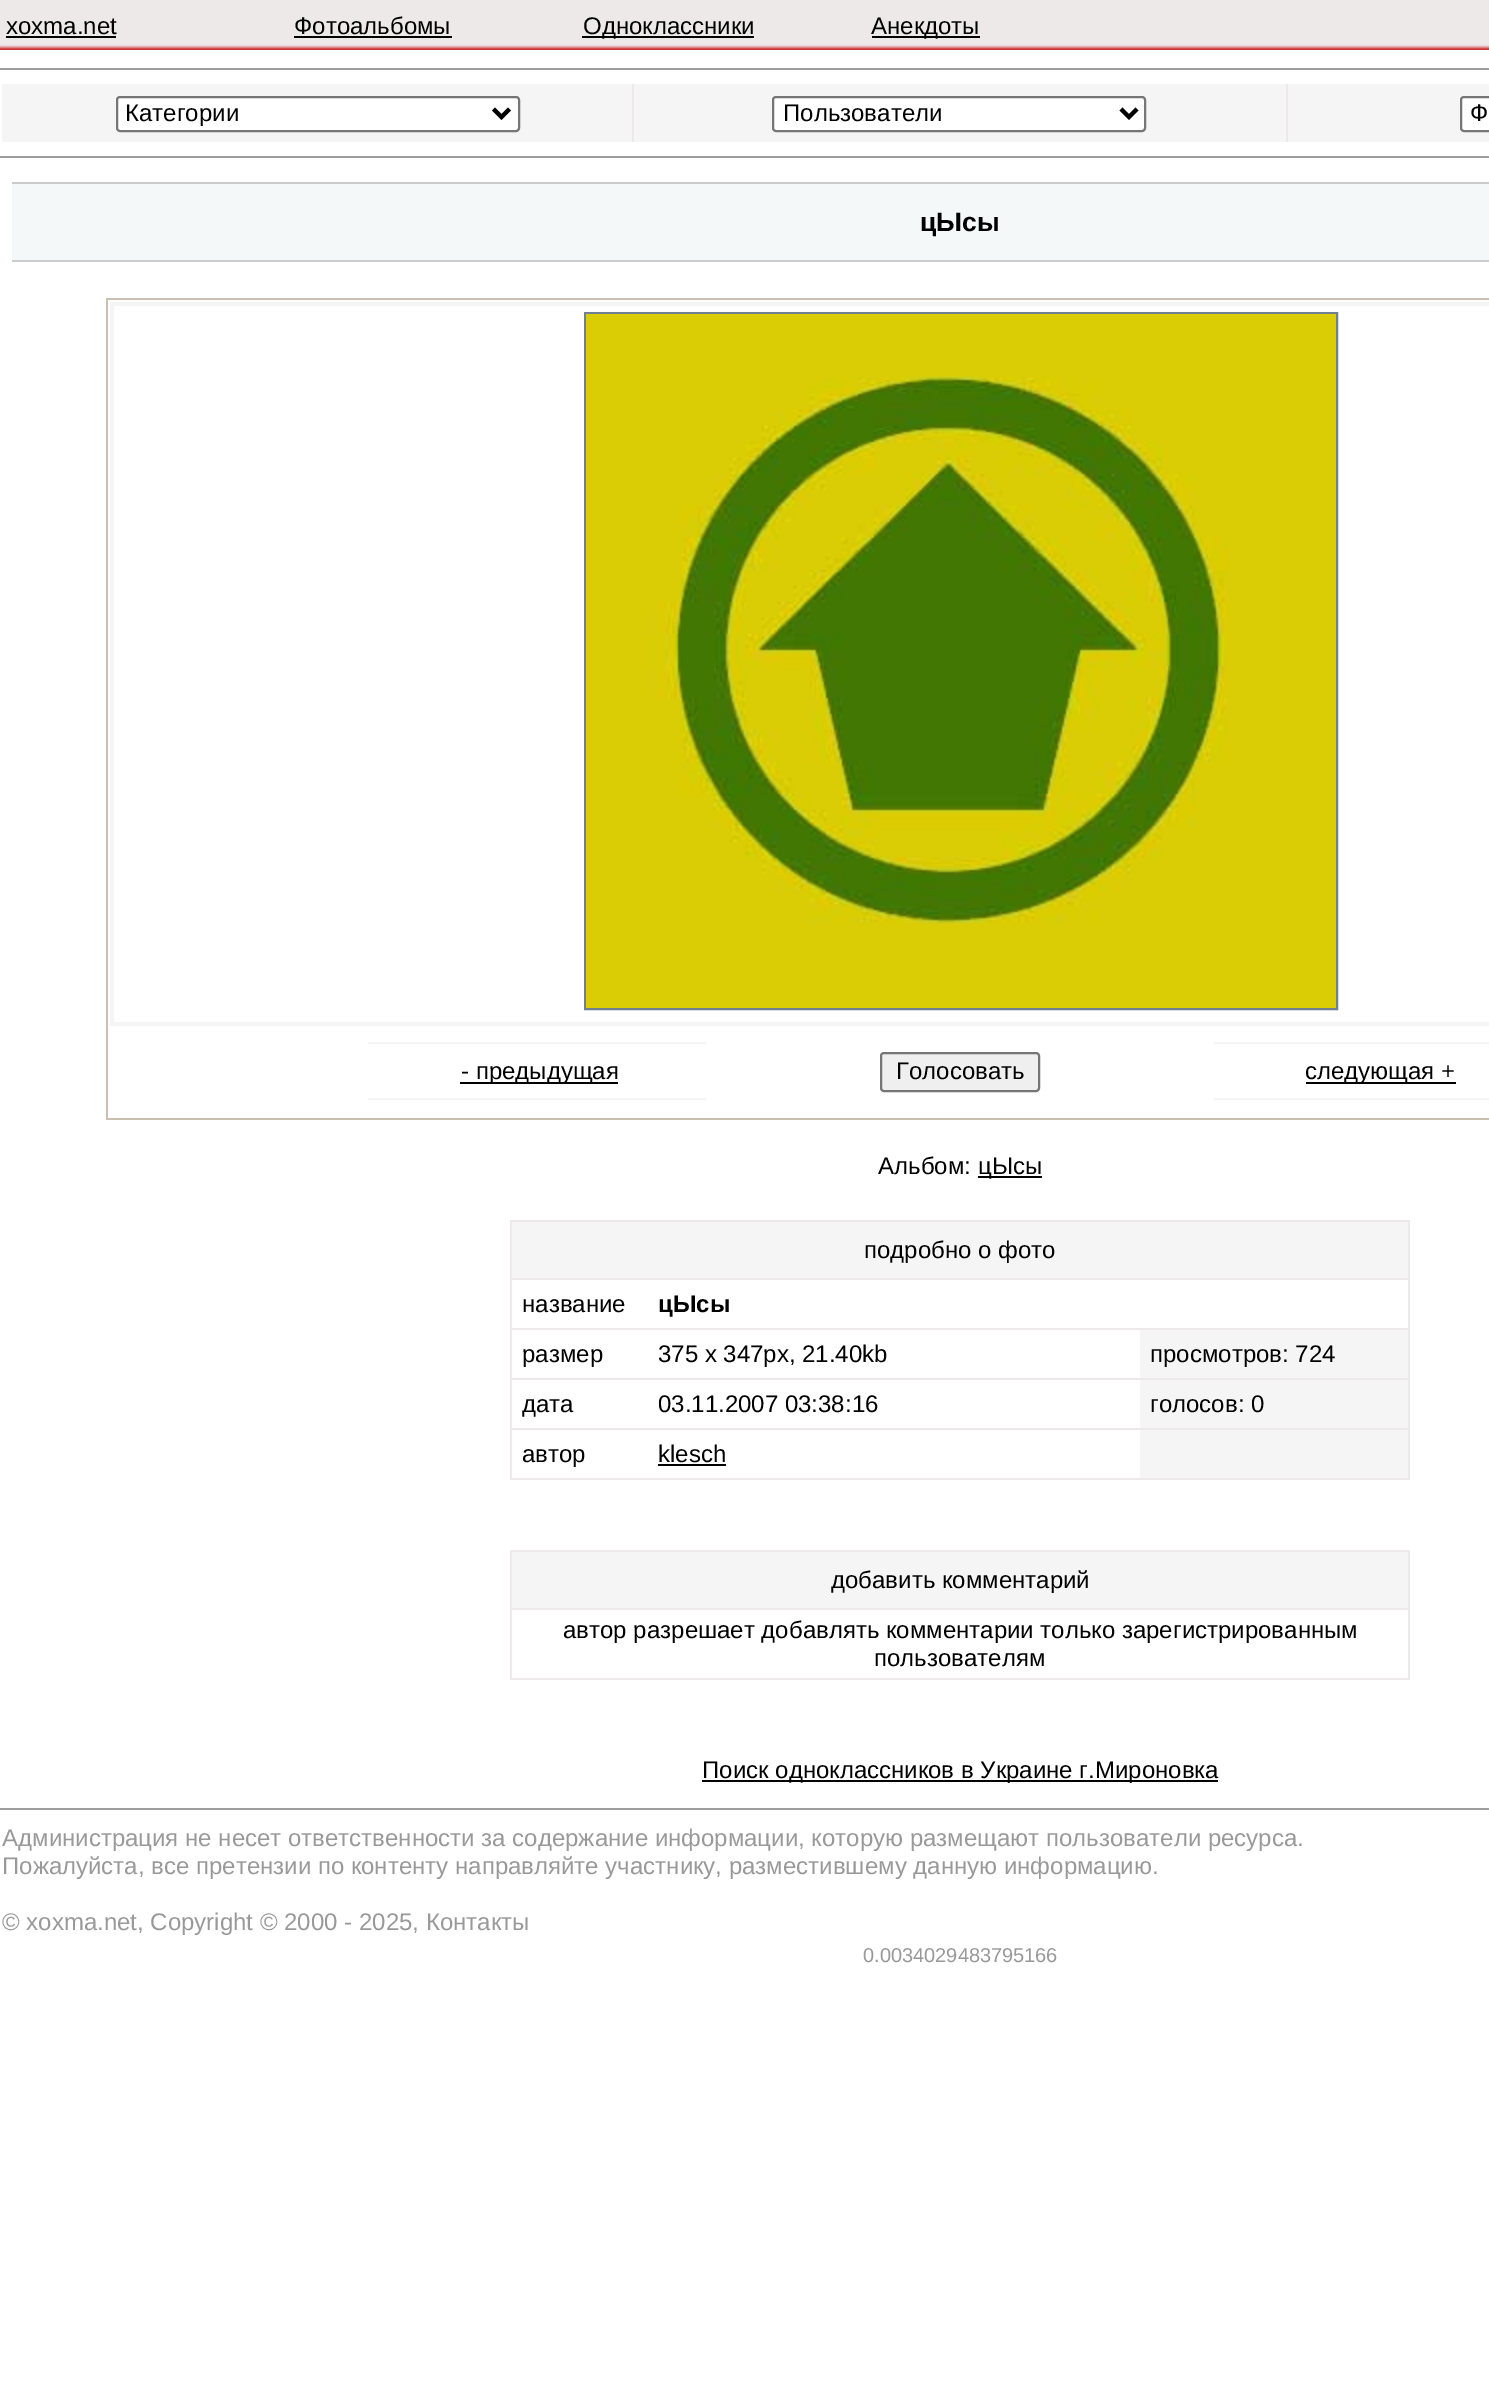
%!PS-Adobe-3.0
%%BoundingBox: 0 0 1489 2402
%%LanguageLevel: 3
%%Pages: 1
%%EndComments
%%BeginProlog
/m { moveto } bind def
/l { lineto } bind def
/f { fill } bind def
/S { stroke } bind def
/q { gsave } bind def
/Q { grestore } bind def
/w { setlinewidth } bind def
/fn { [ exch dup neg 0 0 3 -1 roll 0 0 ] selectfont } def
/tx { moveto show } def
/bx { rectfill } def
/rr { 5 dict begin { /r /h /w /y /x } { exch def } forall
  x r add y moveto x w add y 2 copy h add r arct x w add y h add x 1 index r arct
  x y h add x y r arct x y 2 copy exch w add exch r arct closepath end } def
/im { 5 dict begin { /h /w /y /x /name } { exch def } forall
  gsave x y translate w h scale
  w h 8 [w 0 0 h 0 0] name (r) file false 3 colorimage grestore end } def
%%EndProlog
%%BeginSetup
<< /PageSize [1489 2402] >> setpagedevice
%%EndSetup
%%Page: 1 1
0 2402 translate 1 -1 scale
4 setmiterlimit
1 setgray
0 0 1489 2402 bx
(image0.raw) 0 0 1489 50 im
/LiberationSans-Regular 24 fn
0 setgray
(xoxma.net) 6 34 tx
6 36 110 2 bx
(Фотоальбомы) 294 34 tx
294 36 158 2 bx
582 36 172 2 bx
(Одноклассники) 583 34 tx
872 36 108 2 bx
(Анекдоты) 871 34 tx
0.62 setgray
0 68 1489 2 bx
0.933 0.914 0.914 setrgbcolor
632 84 656 58 bx
0.961 setgray
2 84 630 58 bx
1 setgray
117 97 402 34 3 rr q f Q
0.463 setgray
2 w
S
0 setgray
4 w
493.5 109 m 501.5 117 l 509.5 109 l S
(Категории) 125 121 tx
0.961 setgray
634 84 652 58 bx
1 setgray
773 97 372 34 3 rr q f Q
0.463 setgray
2 w
S
0 setgray
4 w
1121 109 m 1129 117 l 1137 109 l S
(Пользователи) 783 121 tx
0.961 setgray
1288 84 201 58 bx
1 setgray
1461 97 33 34 3 rr q f Q
0.463 setgray
2 w
S
0 setgray
(Ф) 1470 121 tx
0.62 setgray
0 156 1489 2 bx
0.957 0.973 0.976 setrgbcolor
12 184 1477 76 bx
0.8 setgray
12 182 1477 2 bx
12 260 1477 2 bx
/LiberationSans-Bold 26.5 fn
0 setgray
(цЫсы) 920 231 tx
0.8 0.749 0.686 setrgbcolor
106 298 1383 822 bx
1 setgray
108 300 1381 818 bx
0.961 setgray
110 302 1379 724 bx
1 setgray
114 306 1375 716 bx
0.439 0.502 0.565 setrgbcolor
585 313 752 696 rectstroke
(image1.raw) 586 314 750 694 im
0.961 setgray
368 1042 338 2 bx
1214 1042 275 2 bx
0 setgray
460 1082 158 2 bx
/LiberationSans-Regular 24 fn
(- предыдущая) 461 1079 tx
0.937 setgray
881 1053 158 38 3 rr q f Q
0.463 setgray
S
0 setgray
(Голосовать) 896 1079 tx
1306 1082 150 2 bx
(следующая +) 1305 1079 tx
0.961 setgray
368 1098 338 2 bx
1214 1098 275 2 bx
0 setgray
(Альбом:) 878 1174 tx
978 1176 64 2 bx
(цЫсы) 978 1174 tx
0.933 0.914 0.914 setrgbcolor
510 1220 900 260 bx
0.961 setgray
512 1222 896 56 bx
0 setgray
(подробно о фото) 864 1258 tx
1 setgray
512 1280 896 48 bx
0 setgray
(название) 522 1312 tx
/LiberationSans-Bold 24 fn
(цЫсы) 658 1312 tx
1 setgray
512 1330 628 48 bx
/LiberationSans-Regular 24 fn
0 setgray
(размер) 522 1362 tx
(375 x 347px, 21.40kb) 658 1362 tx
0.961 setgray
1140 1330 268 48 bx
0 setgray
(просмотров: 724) 1150 1362 tx
1 setgray
512 1380 628 48 bx
0 setgray
(дата) 522 1412 tx
(03.11.2007 03:38:16) 658 1412 tx
0.961 setgray
1140 1380 268 48 bx
0 setgray
(голосов: 0) 1150 1412 tx
1 setgray
512 1430 628 48 bx
0 setgray
(автор) 522 1462 tx
(klesch) 658 1462 tx
658 1464 68 2 bx
0.961 setgray
1140 1430 268 48 bx
0.933 0.914 0.914 setrgbcolor
510 1550 900 130 bx
0.961 setgray
512 1552 896 56 bx
0 setgray
(добавить комментарий) 831 1588 tx
1 setgray
512 1610 896 68 bx
0 setgray
(автор разрешает добавлять комментарии только зарегистрированным) 563 1638 tx
(пользователям) 874 1666 tx
702 1780 516 2 bx
(Поиск одноклассников в Украине г.Мироновка) 702 1778 tx
0.62 setgray
0 1808 1489 2 bx
0.6 setgray
(Администрация не несет ответственности за содержание информации, которую размещают пользователи ресурса.) 2 1846 tx
(Пожалуйста, все претензии по контенту направляйте участнику, разместившему данную информацию.) 2 1874 tx
(© xoxma.net, Copyright © 2000 - 2025, Контакты) 2 1930 tx
/LiberationSans-Regular 20 fn
(0.0034029483795166) 863 1962 tx
showpage
%%EOF
